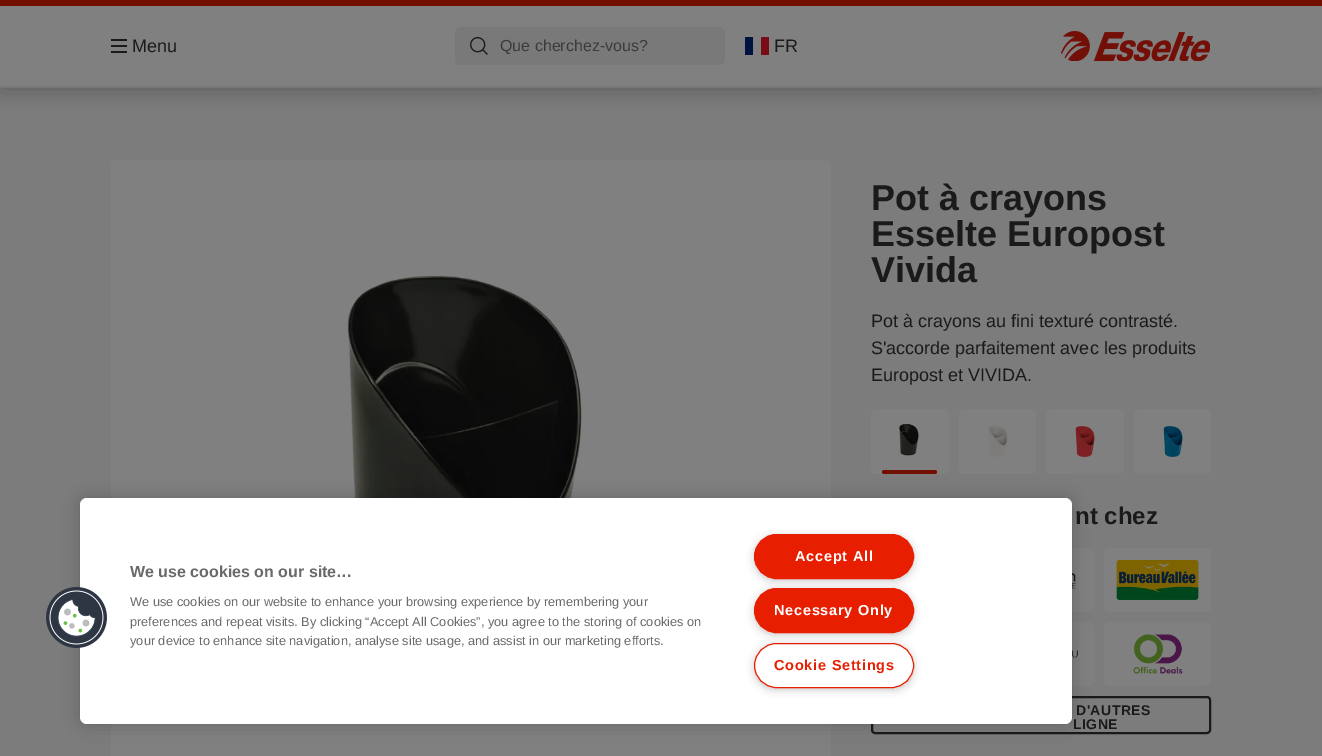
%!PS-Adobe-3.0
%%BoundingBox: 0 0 1322 756
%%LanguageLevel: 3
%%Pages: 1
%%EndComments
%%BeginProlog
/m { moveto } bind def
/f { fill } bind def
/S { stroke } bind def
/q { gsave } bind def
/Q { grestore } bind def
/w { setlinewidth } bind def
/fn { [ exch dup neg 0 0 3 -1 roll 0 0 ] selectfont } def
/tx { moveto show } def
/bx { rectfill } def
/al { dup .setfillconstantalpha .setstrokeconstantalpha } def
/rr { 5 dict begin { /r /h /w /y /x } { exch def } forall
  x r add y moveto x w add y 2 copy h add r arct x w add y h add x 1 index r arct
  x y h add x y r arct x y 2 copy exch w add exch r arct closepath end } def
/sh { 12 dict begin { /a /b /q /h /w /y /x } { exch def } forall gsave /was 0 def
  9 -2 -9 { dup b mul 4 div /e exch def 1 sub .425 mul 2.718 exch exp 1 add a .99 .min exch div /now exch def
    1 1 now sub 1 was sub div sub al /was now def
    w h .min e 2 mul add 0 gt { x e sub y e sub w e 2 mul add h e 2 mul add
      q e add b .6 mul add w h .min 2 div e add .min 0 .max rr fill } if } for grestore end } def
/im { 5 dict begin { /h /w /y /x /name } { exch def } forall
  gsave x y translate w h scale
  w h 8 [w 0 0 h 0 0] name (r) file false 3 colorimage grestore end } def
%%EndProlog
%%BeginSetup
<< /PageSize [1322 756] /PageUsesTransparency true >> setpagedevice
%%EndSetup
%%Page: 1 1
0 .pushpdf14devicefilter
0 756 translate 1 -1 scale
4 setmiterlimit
0.486 setgray
0 0 1322 756 bx
0 setgray
0 5 1322 88 0 10 0.2 sh
0.502 setgray
0 6 1322 80 bx
0.455 0.059 0 setrgbcolor
0 0 1322 6 bx
0.475 setgray
0 86 1322 2 bx
0.102 setgray
111 45 16 2 bx
111 39 16 2 bx
111 51 16 2 bx
/LiberationSans-Regular 18 fn
(Menu) 132 52 tx
0.475 setgray
455 27 270 38 6 rr f
(image0.raw) 470 37 18 18 im
/LiberationSans-Regular 16 fn
0.231 setgray
(Que cherchez-vous?) 500 51 tx
0 0.075 0.251 setrgbcolor
745 37 8 18 bx
0.478 0.047 0.094 setrgbcolor
761 37 8 18 bx
/LiberationSans-Regular 18 fn
0.102 setgray
(FR) 774 52 tx
(image1.raw) 1061 31 149 30 im
0.502 setgray
111 160 720 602 6 rr f
(image3.raw) 347 275 235 223 im
871 409 78 65 6 rr f
0.455 0.059 0 setrgbcolor
882 470 55 4 2 rr f
0.502 setgray
959 409 77 65 6 rr f
1046 409 78 65 6 rr f
988 548 106 64 6 rr f
(image8.raw) 1072 569 4 20 im
988 622 106 64 6 rr f
(image10.raw) 1072 647 6 11 im
0.102 setgray
2 w
872 697 338 36 3 rr S
0 setgray
80 498 992 226 7 9 0.2 sh
1 setgray
80 498 992 226 7 rr f
(image2.raw) 46 587 61 61 im
/LiberationSans-Bold 16 fn
0.412 setgray
(We use cookies on our site…) 130 577 tx
/LiberationSans-Regular 12.8 fn
(We use cookies on our website to enhance your browsing experience by remembering your) 130 606 tx
(preferences and repeat visits. By clicking “Accept All Cookies”, you agree to the storing of cookies on) 130 626 tx
(your device to enhance site navigation, analyse site usage, and assist in our marketing efforts.) 130 645 tx
0.6 setgray
757 539 154 39 19.5 5 1 sh
0.906 0.118 0 setrgbcolor
754.5 534.5 159 44 22 rr q f Q
1 w
S
/LiberationSans-Bold 14.5 fn
1 setgray
795 561 m 0.75 0 (Accept All) ashow
0.6 setgray
757 593 154 39 19.5 5 1 sh
0.906 0.118 0 setrgbcolor
754.5 588.5 159 44 22 rr q f Q
S
1 setgray
774 615 m 0.75 0 (Necessary Only) ashow
0.6 setgray
757 648 154 39 19.5 5 1 sh
1 setgray
754.5 643.5 159 44 22 rr q f Q
0.906 0.118 0 setrgbcolor
S
774 670 m 0.75 0 (Cookie Settings) ashow
/LiberationSans-Bold 36 fn
0.102 setgray
(Pot à crayons) 871 210 tx
(Esselte Europost) 871 246 tx
(Vivida) 871 282 tx
/LiberationSans-Regular 18 fn
(Pot à crayons au fini texturé contrasté.) 871 327 tx
(S'accorde parfaitement avec les produits) 871 354 tx
(Europost et VIVIDA.) 871 381 tx
(image4.raw) 899 423 20 33 im
(image5.raw) 988 426 20 31 im
(image6.raw) 1075 426 20 31 im
0.502 setgray
1134 409 77 65 6 rr f
(image7.raw) 1163 426 20 31 im
/LiberationSans-Bold 24 fn
0.102 setgray
(nt chez) 1075 524 tx
0.502 setgray
1104 548 107 64 6 rr f
(image9.raw) 1116 560 83 40 im
1104 622 107 64 6 rr f
(image11.raw) 1133 634 50 40 im
/LiberationSans-Bold 14 fn
0.102 setgray
1076 715 m 0.5 0 (D'AUTRES) ashow
1073 729 m 0.5 0 (LIGNE) ashow
.poppdf14devicefilter showpage
%%EOF
